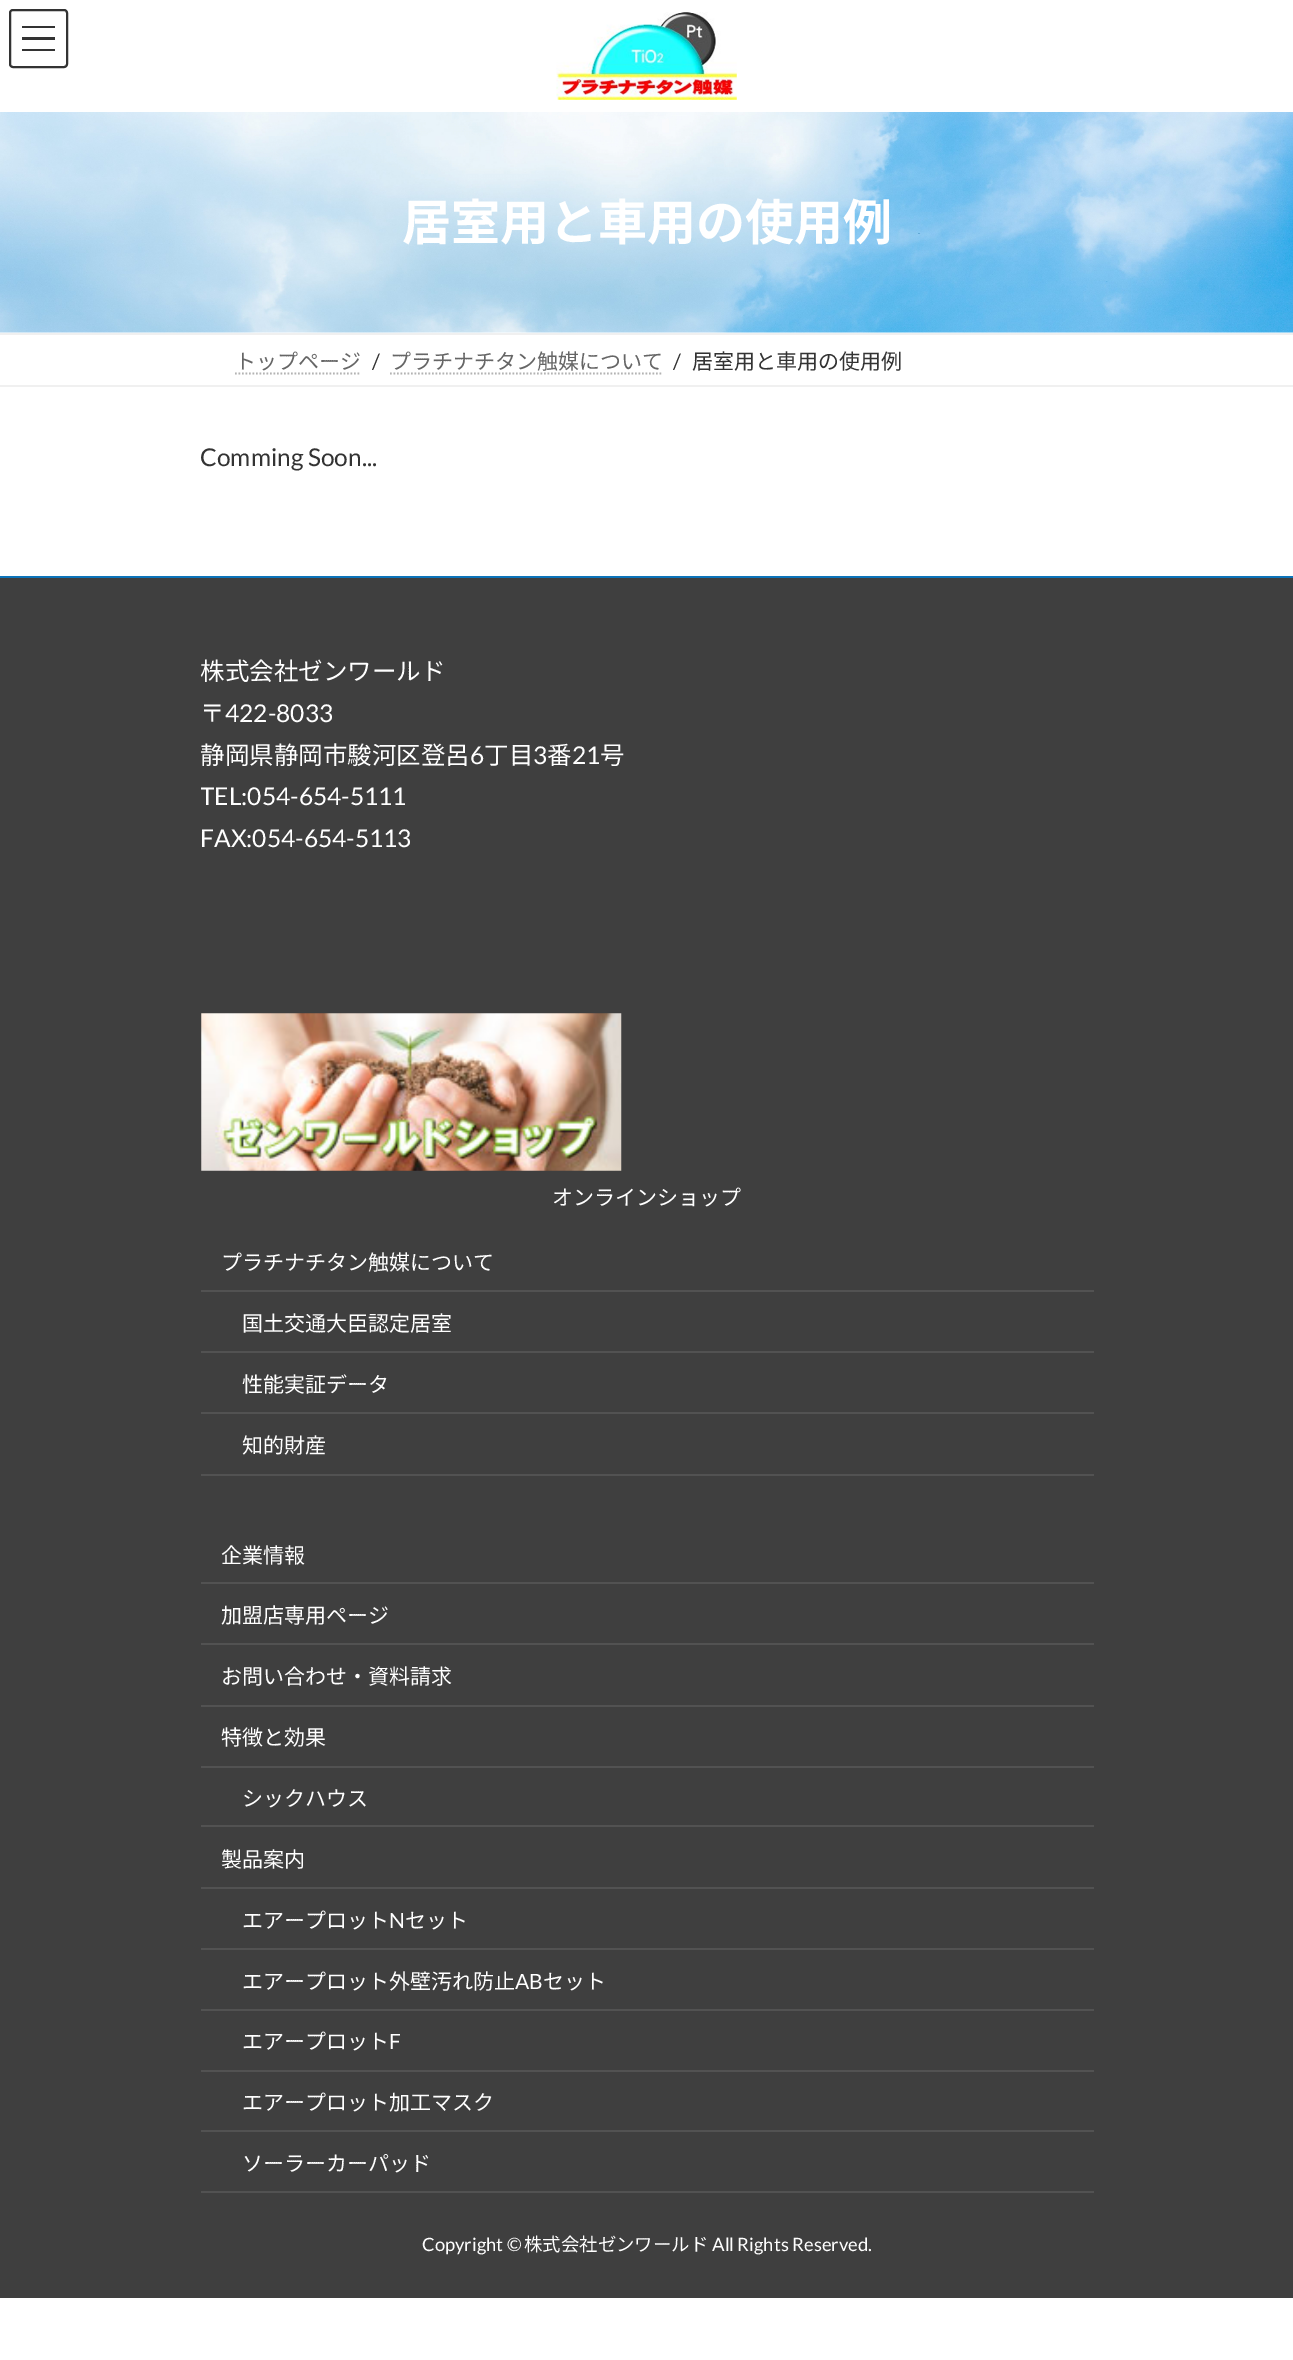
%!PS-Adobe-3.0
%%BoundingBox: 0 0 1293 2360
%%LanguageLevel: 3
%%Pages: 1
%%EndComments
%%BeginProlog
/m { moveto } bind def
/l { lineto } bind def
/S { stroke } bind def
/q { gsave } bind def
/Q { grestore } bind def
/w { setlinewidth } bind def
/fn { [ exch dup neg 0 0 3 -1 roll 0 0 ] selectfont } def
/tx { moveto show } def
/bx { rectfill } def
/rr { 5 dict begin { /r /h /w /y /x } { exch def } forall
  x r add y moveto x w add y 2 copy h add r arct x w add y h add x 1 index r arct
  x y h add x y r arct x y 2 copy exch w add exch r arct closepath end } def
/im { 5 dict begin { /h /w /y /x /name } { exch def } forall
  gsave x y translate w h scale
  w h 8 [w 0 0 h 0 0] name (r) file false 3 colorimage grestore end } def
%%EndProlog
%%BeginSetup
<< /PageSize [1293 2360] >> setpagedevice
%%EndSetup
%%Page: 1 1
0 2360 translate 1 -1 scale
4 setmiterlimit
1 setgray
0 0 1293 2360 bx
0.2 setgray
22 26 33 2 bx
22 37 33 3 bx
22 49 33 2 bx
2 w
10 10 57 57 3 rr S
(image0.raw) 556 12 181 88 im
(image1.raw) 0 112 1293 221 im
/NotoSansJP-Bold 49 fn
1 setgray
(居室用と車用の使用例) 402 240 tx
0.941 setgray
0 333 1293 2 bx
0 385 1293 2 bx
/NotoSansJP-Regular 21 fn
0.4 setgray
(トップページ) 235 369 tx
0.702 setgray
1.8 w
[1.75 1.75] 0 setdash
235 373.5 m 361 373.5 l S
/Lato-Regular 21 fn
0.2 setgray
(/) 372 369 tx
/NotoSansJP-Regular 21 fn
0.4 setgray
(プラチナチタン触媒について) 390 369 tx
0.702 setgray
390 373.5 m 663 373.5 l S
/Lato-Regular 21 fn
0.2 setgray
(/) 673 369 tx
/NotoSansJP-Regular 21 fn
(居室用と車用の使用例) 692 369 tx
/Lato-Regular 24.5 fn
(Comming Soon...) 200 466 tx
0.247 setgray
0 578 1293 1720 bx
0.047 0.451 0.725 setrgbcolor
0 576 1293 2 bx
/NotoSansJP-Regular 24.5 fn
1 setgray
(株式会社ゼンワールド) 200 680 tx
(〒) 200 722 tx
/Lato-Regular 24.5 fn
(422-8033) 225 722 tx
/NotoSansJP-Regular 24.5 fn
(静岡県静岡市駿河区登呂) 200 764 tx
/Lato-Regular 24.5 fn
(6) 470 764 tx
/NotoSansJP-Regular 24.5 fn
(丁目) 484 764 tx
/Lato-Regular 24.5 fn
(3) 533 764 tx
/NotoSansJP-Regular 24.5 fn
(番) 547 764 tx
/Lato-Regular 24.5 fn
(21) 572 764 tx
/NotoSansJP-Regular 24.5 fn
(号) 600 764 tx
q
201 651 893 312 rectclip
/Lato-Regular 24.5 fn
(TEL:054-654-5111) 200 805 tx
Q
/Lato-Regular 24.5 fn
(FAX:054-654-5113) 200 847 tx
(image2.raw) 201 1013 421 158 im
/NotoSansJP-Regular 21 fn
(オンラインショップ) 552 1205 tx
0.322 setgray
201 1290 893 2 bx
1 setgray
(プラチナチタン触媒について) 221 1270 tx
0.322 setgray
201 1351 893 2 bx
1 setgray
(国土交通大臣認定居室) 242 1331 tx
0.322 setgray
201 1412 893 2 bx
1 setgray
(性能実証データ) 242 1392 tx
0.322 setgray
201 1474 893 2 bx
1 setgray
(知的財産) 242 1453 tx
0.322 setgray
201 1582 893 2 bx
1 setgray
(企業情報) 221 1563 tx
0.322 setgray
201 1643 893 2 bx
1 setgray
(加盟店専用ページ) 221 1623 tx
0.322 setgray
201 1705 893 2 bx
1 setgray
(お問い合わせ・資料請求) 221 1684 tx
0.322 setgray
201 1766 893 2 bx
1 setgray
(特徴と効果) 221 1745 tx
0.322 setgray
201 1825 893 2 bx
1 setgray
(シックハウス) 242 1806 tx
0.322 setgray
201 1887 893 2 bx
1 setgray
(製品案内) 221 1867 tx
0.322 setgray
201 1948 893 2 bx
1 setgray
(エアープロット) 242 1928 tx
/Lato-Regular 21 fn
(N) 389 1928 tx
/NotoSansJP-Regular 21 fn
(セット) 405 1928 tx
0.322 setgray
201 2009 893 2 bx
1 setgray
(エアープロット外壁汚れ防止) 242 1989 tx
/Lato-Regular 21 fn
(AB) 515 1989 tx
/NotoSansJP-Regular 21 fn
(セット) 543 1989 tx
0.322 setgray
201 2070 893 2 bx
1 setgray
(エアープロット) 242 2049 tx
/Lato-Regular 21 fn
(F) 389 2049 tx
0.322 setgray
201 2130 893 2 bx
/NotoSansJP-Regular 21 fn
1 setgray
(エアープロット加工マスク) 242 2110 tx
0.322 setgray
201 2191 893 2 bx
1 setgray
(ソーラーカーパッド) 242 2171 tx
/Lato-Regular 18.4 fn
(Copyright ©) 422 2251 tx
/NotoSansJP-Regular 18.4 fn
(株式会社ゼンワールド) 524 2251 tx
/Lato-Regular 18.4 fn
(All Rights Reserved.) 712 2251 tx
showpage
%%EOF
